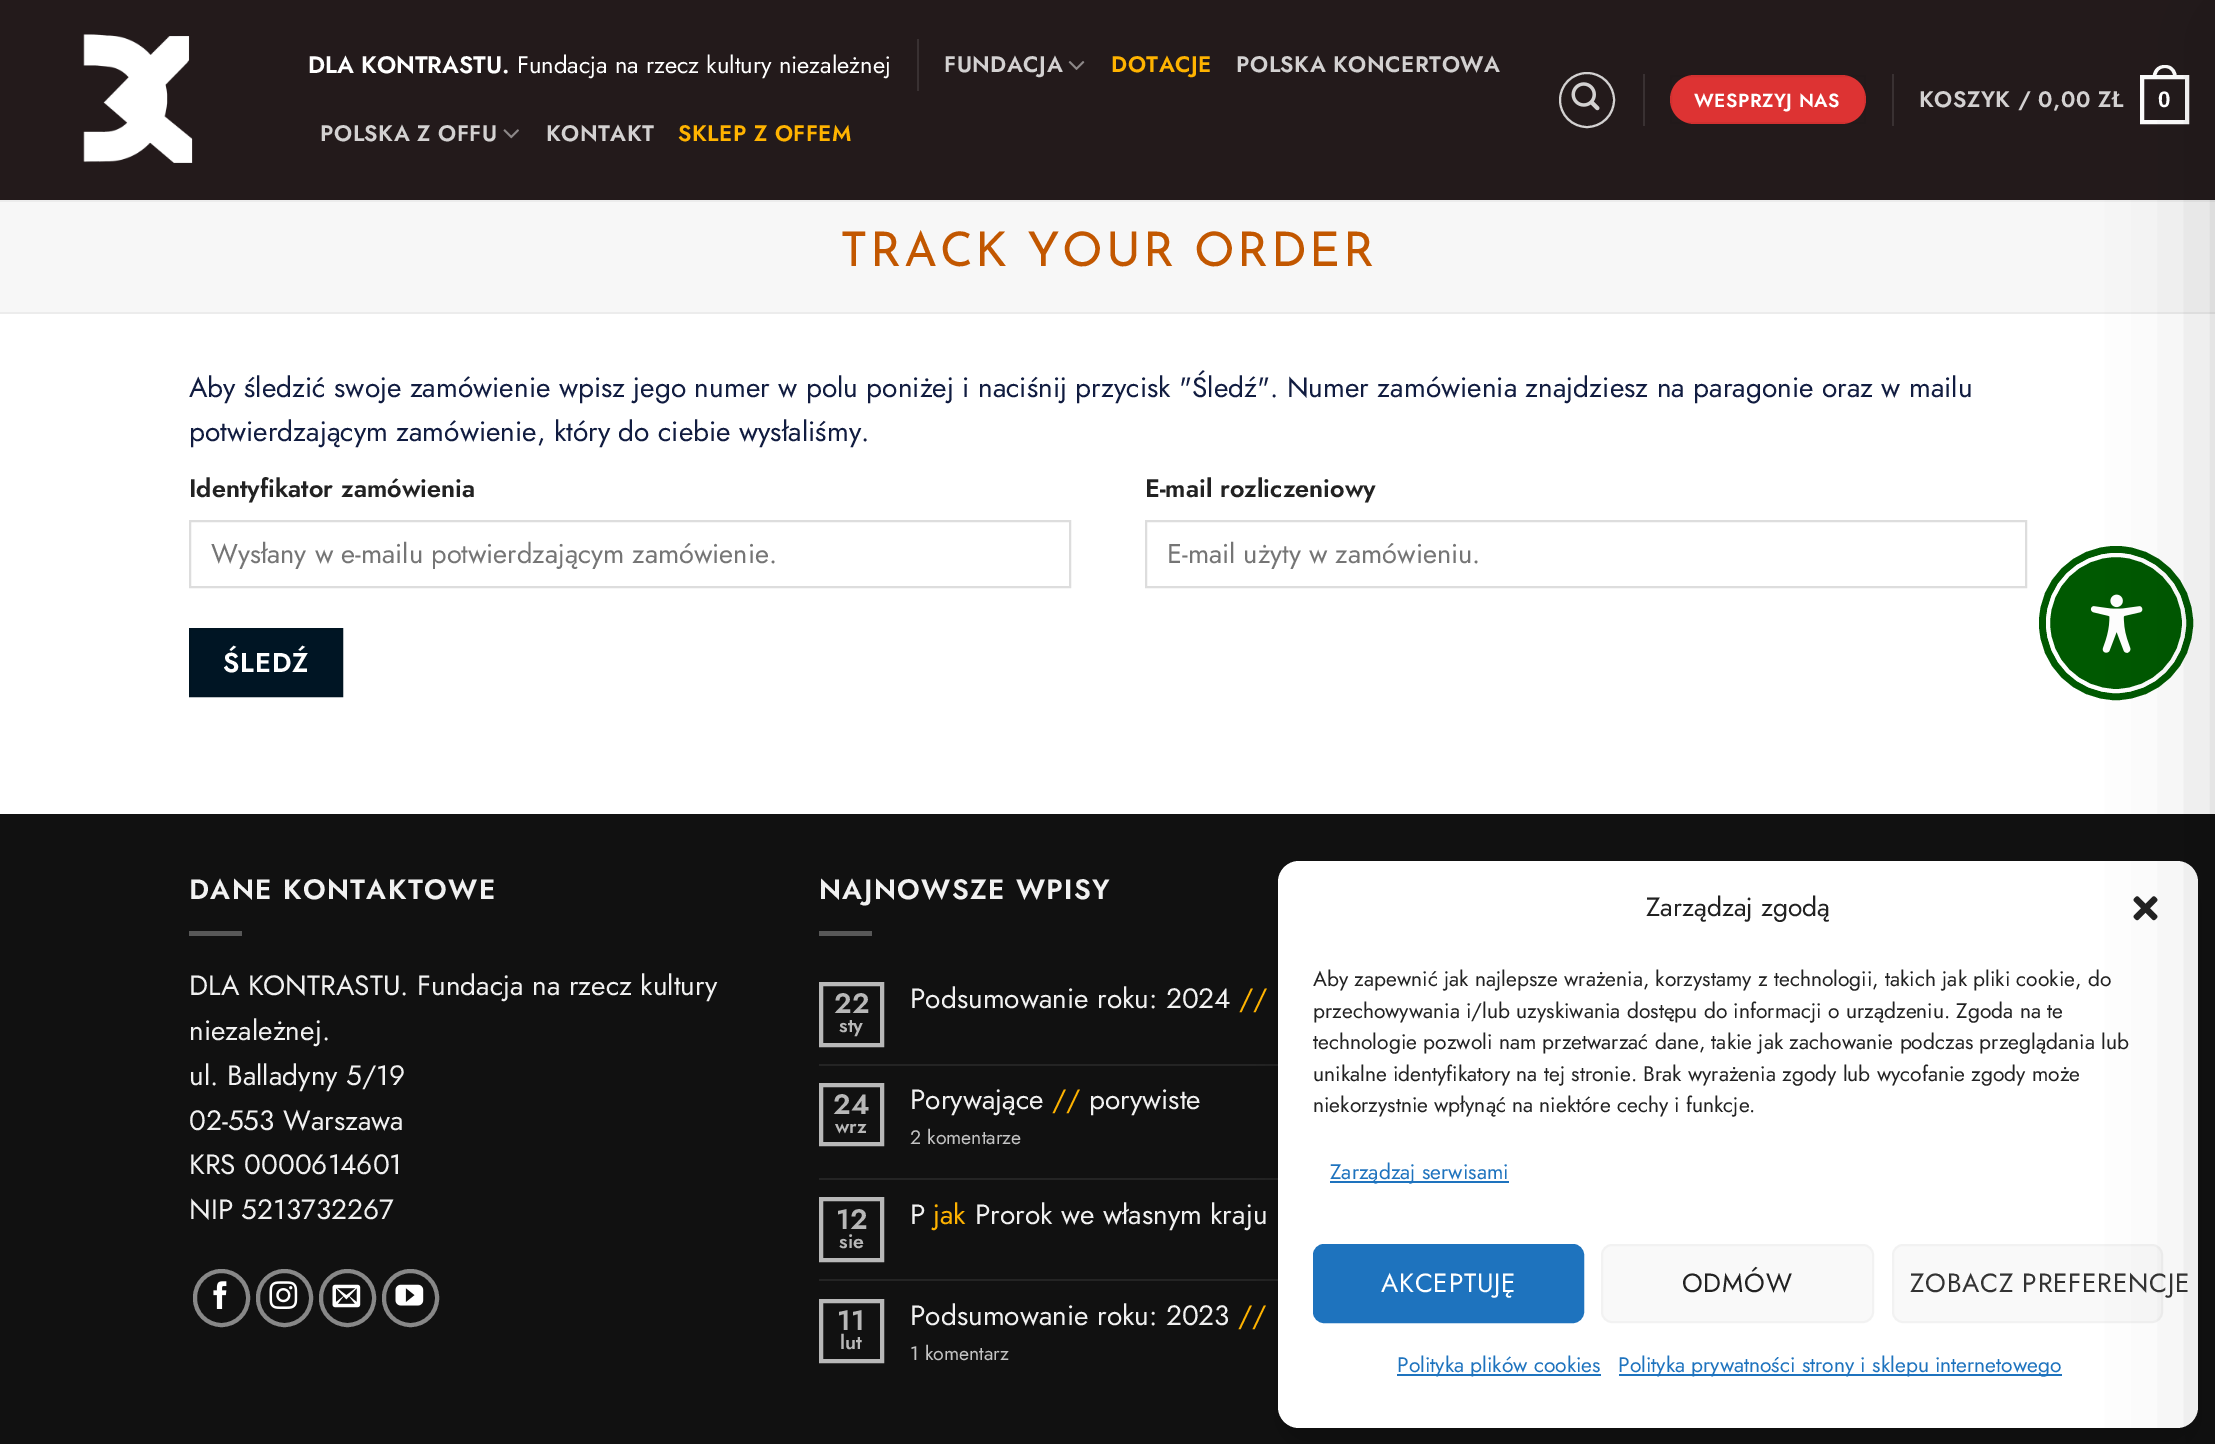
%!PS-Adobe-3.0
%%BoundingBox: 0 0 2215 1444
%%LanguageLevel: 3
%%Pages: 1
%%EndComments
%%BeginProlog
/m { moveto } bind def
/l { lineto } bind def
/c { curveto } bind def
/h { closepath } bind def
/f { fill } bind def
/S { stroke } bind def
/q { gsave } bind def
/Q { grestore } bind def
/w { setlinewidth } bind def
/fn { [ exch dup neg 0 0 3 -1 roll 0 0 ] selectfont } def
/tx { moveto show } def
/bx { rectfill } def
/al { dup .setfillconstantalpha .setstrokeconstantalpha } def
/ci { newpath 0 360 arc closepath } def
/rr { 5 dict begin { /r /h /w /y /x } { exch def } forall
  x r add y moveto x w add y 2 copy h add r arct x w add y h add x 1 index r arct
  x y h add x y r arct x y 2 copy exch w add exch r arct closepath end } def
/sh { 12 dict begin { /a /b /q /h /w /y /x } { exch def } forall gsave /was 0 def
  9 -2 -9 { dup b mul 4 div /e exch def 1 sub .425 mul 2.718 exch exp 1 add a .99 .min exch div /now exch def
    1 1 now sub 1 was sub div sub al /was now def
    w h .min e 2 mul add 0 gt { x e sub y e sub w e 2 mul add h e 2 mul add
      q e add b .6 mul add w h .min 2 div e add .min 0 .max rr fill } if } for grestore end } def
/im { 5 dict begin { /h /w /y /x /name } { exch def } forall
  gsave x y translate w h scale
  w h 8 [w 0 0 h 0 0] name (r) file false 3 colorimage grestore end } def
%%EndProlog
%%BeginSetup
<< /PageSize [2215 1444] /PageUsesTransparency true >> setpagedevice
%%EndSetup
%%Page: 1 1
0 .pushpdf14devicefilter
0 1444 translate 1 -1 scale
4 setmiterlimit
1 setgray
0 0 2215 1444 bx
0.137 0.102 0.106 setrgbcolor
0 0 2215 200 bx
1 setgray
4 w
2142 77 45 45 rectstroke
2165 65 m 2173 65 2177 71 2177 79 c 2152.5 79 l 2152.5 71 2156.5 65 2165 65 c h 2165 68 m 2171 68 2173.5 73 2173.5 79 c 2156 79 l 2156 73 2158.5 68 2165 68 c h eofill
0.969 setgray
0 202 2215 110 bx
0.925 setgray
0 200 2215 2 bx
0 312 2215 2 bx
0.067 setgray
0 814 2215 630 bx
0 0.349 0.004 setrgbcolor
7 w
2116 623 73.5 ci S
2116 623 68 ci q f Q
1 setgray
4 w
S
(image8.raw) 2090 594 53 59 im
0.141 setgray
819 1064 459 2 bx
819 1178 459 2 bx
819 1279 459 2 bx
0 setgray
1278 879 920 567 21 17.5 0.19 sh
1 setgray
1278 861 920 567 21 rr f
(image9.raw) 2133 896 25 25 im
0.976 setgray
1893 1245 269 77 10 rr q f Q
0.949 setgray
2 w
S
0 setgray
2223 18 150 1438 0 52.5 0.2 sh
(image0.raw) 83 34 110 129 im
/Jost-SemiBold 23.75 fn
1 setgray
(DLA KONTRASTU.) 308 73 tx
/Jost-Regular 23.75 fn
(Fundacja na rzecz kultury niezależnej) 517 73 tx
0.224 0.192 0.196 setrgbcolor
917 39 2 52 bx
/Jost-SemiBold 22.4 fn
0.827 0.82 0.82 setrgbcolor
944 72 m 0.5 0 (FUNDACJA) ashow
(image1.raw) 1068 61 17 9 im
1 0.702 0 setrgbcolor
1111 72 m 0.5 0 (DOTACJE) ashow
0.827 0.82 0.82 setrgbcolor
1236 72 m 0.5 0 (POLSKA KONCERTOWA) ashow
320 141 m 0.5 0 (POLSKA Z OFFU) ashow
(image2.raw) 503 129 16 10 im
546 141 m 0.5 0 (KONTAKT) ashow
1 0.702 0 setrgbcolor
678 141 m 0.5 0 (SKLEP Z OFFEM) ashow
0.827 0.82 0.82 setrgbcolor
1587 100 27 ci S
(image3.raw) 1571 82 29 29 im
0.224 0.192 0.196 setrgbcolor
1643 74 2 52 bx
0.867 0.2 0.2 setrgbcolor
1670 75 196 49 24.5 rr f
0.05 al
0 setgray
1671 76 194 47 rectstroke
/Jost-SemiBold 19 fn
1 al
1 setgray
1694 107 m 0.5 0 (WESPRZYJ NAS) ashow
0.224 0.192 0.196 setrgbcolor
1892 74 2 52 bx
/Jost-SemiBold 22.4 fn
0.827 0.82 0.82 setrgbcolor
1919 107 m 0.5 0 (KOSZYK / 0,00 ZŁ) ashow
/LiberationSans-Bold 22.4 fn
1 setgray
2158 107 m 0.5 0 (0) ashow
/JosefinSans-Thin 47.6 fn
0.761 0.341 0 setrgbcolor
840 266 m 2.4 0 (TRACK YOUR ORDER) ashow
/Jost-Regular 28 fn
0.067 0.11 0.251 setrgbcolor
(Aby śledzić swoje zamówienie wpisz jego numer w polu poniżej i naciśnij przycisk "Śledź". Numer zamówienia znajdziesz na paragonie oraz w mailu) 189 397 tx
(potwierdzającym zamówienie, który do ciebie wysłaliśmy.) 189 441 tx
/Jost-SemiBold 25.25 fn
0.133 setgray
(Identyfikator zamówienia) 189 497 tx
0.867 setgray
190 521 880 66 rectstroke
/Jost-Regular 27.2 fn
0.459 setgray
(Wysłany w e-mailu potwierdzającym zamówienie.) 211 563 tx
/Jost-SemiBold 25.25 fn
0.133 setgray
(E-mail rozliczeniowy) 1145 497 tx
0.867 setgray
1146 521 880 66 rectstroke
/Jost-Regular 27.2 fn
0.459 setgray
(E-mail użyty w zamówieniu.) 1167 563 tx
0 0.082 0.141 setrgbcolor
190 629 m 342 629 l 342 696 l 190 696 l h q f Q
0 0.078 0.133 setrgbcolor
S
/Jost-SemiBold 27.2 fn
1 setgray
223 672 m 1 0 (ŚLEDŹ) ashow
/Jost-SemiBold 28 fn
0.945 setgray
189 899 m 1.4 0 (DANE KONTAKTOWE) ashow
0.345 setgray
189 931 53 5 bx
/Jost-Regular 28 fn
0.945 setgray
(DLA KONTRASTU. Fundacja na rzecz kultury) 189 995 tx
(niezależnej.) 189 1040 tx
(ul. Balladyny 5/19) 189 1085 tx
(02-553 Warszawa) 189 1130 tx
(KRS 0000614601) 189 1174 tx
(NIP 5213732267) 189 1219 tx
0.533 setgray
4 w
195 1271 53 54 26.5 rr S
(image4.raw) 213 1281 14 28 im
258 1271 53 54 26.5 rr S
(image5.raw) 269 1281 29 28 im
321 1271 53 54 26.5 rr S
(image6.raw) 332 1284 29 24 im
384 1271 53 54 26.5 rr S
(image7.raw) 395 1284 29 22 im
/Jost-SemiBold 28 fn
0.945 setgray
819 899 m 1.4 0 (NAJNOWSZE WPISY) ashow
0.345 setgray
819 931 53 5 bx
0.722 setgray
821 984 61 61 rectstroke
(22) 834 1013 tx
/Jost-SemiBold 19.5 fn
(sty) 839 1032 tx
/Jost-Regular 28 fn
0.945 setgray
(Podsumowanie roku: 2024) 910 1008 tx
1 0.702 0 setrgbcolor
(//) 1239 1008 tx
0.722 setgray
821 1085 61 59 rectstroke
/Jost-SemiBold 28 fn
(24) 833 1114 tx
/Jost-SemiBold 19.5 fn
(wrz) 835 1133 tx
/Jost-Regular 28 fn
0.945 setgray
(Porywające) 910 1109 tx
1 0.702 0 setrgbcolor
(//) 1052 1109 tx
0.945 setgray
(porywiste) 1089 1109 tx
/Jost-Regular 19.5 fn
0.769 setgray
(2 komentarze) 910 1144 tx
0.722 setgray
821 1199 61 61 rectstroke
/Jost-SemiBold 28 fn
(12) 836 1229 tx
/Jost-SemiBold 19.5 fn
(sie) 839 1248 tx
/Jost-Regular 28 fn
0.945 setgray
(P) 910 1224 tx
1 0.702 0 setrgbcolor
(jak) 933 1224 tx
0.945 setgray
(Prorok we własnym kraju) 975 1224 tx
0.722 setgray
821 1301 61 60 rectstroke
/Jost-SemiBold 28 fn
(11) 837 1330 tx
/Jost-SemiBold 19.5 fn
(lut) 840 1349 tx
/Jost-Regular 28 fn
0.945 setgray
(Podsumowanie roku: 2023) 910 1325 tx
1 0.702 0 setrgbcolor
(//) 1238 1325 tx
/Jost-Regular 19.5 fn
0.769 setgray
(1 komentarz) 910 1360 tx
/Jost-Regular 26.25 fn
0.133 setgray
(Zarządzaj zgodą) 1646 916 tx
/Jost-Regular 21 fn
(Aby zapewnić jak najlepsze wrażenia, korzystamy z technologii, takich jak pliki cookie, do) 1313 986 tx
(przechowywania i/lub uzyskiwania dostępu do informacji o urządzeniu. Zgoda na te) 1313 1018 tx
(technologie pozwoli nam przetwarzać dane, takie jak zachowanie podczas przeglądania lub) 1313 1049 tx
(unikalne identyfikatory na tej stronie. Brak wyrażenia zgody lub wycofanie zgody może) 1313 1081 tx
(niekorzystnie wpłynąć na niektóre cechy i funkcje.) 1313 1112 tx
0.118 0.451 0.745 setrgbcolor
1330 1181 179 2 bx
(Zarządzaj serwisami) 1330 1179 tx
1314 1245 269 77 10 rr q f Q
2 w
S
/Jost-Regular 26.25 fn
1 setgray
1381 1292 m 0.75 0 (AKCEPTUJĘ) ashow
0.976 setgray
1602 1245 271 77 10 rr q f Q
0.949 setgray
S
0.133 setgray
1682 1292 m 0.75 0 (ODMÓW) ashow
0.2 setgray
1910 1292 m 0.75 0 (ZOBACZ PREFERENCJE) ashow
0.118 0.451 0.745 setrgbcolor
1397 1374 204 2 bx
/Jost-Regular 21 fn
(Polityka plików cookies) 1397 1372 tx
1619 1374 443 2 bx
(Polityka prywatności strony i sklepu internetowego) 1618 1372 tx
.poppdf14devicefilter showpage
%%EOF
